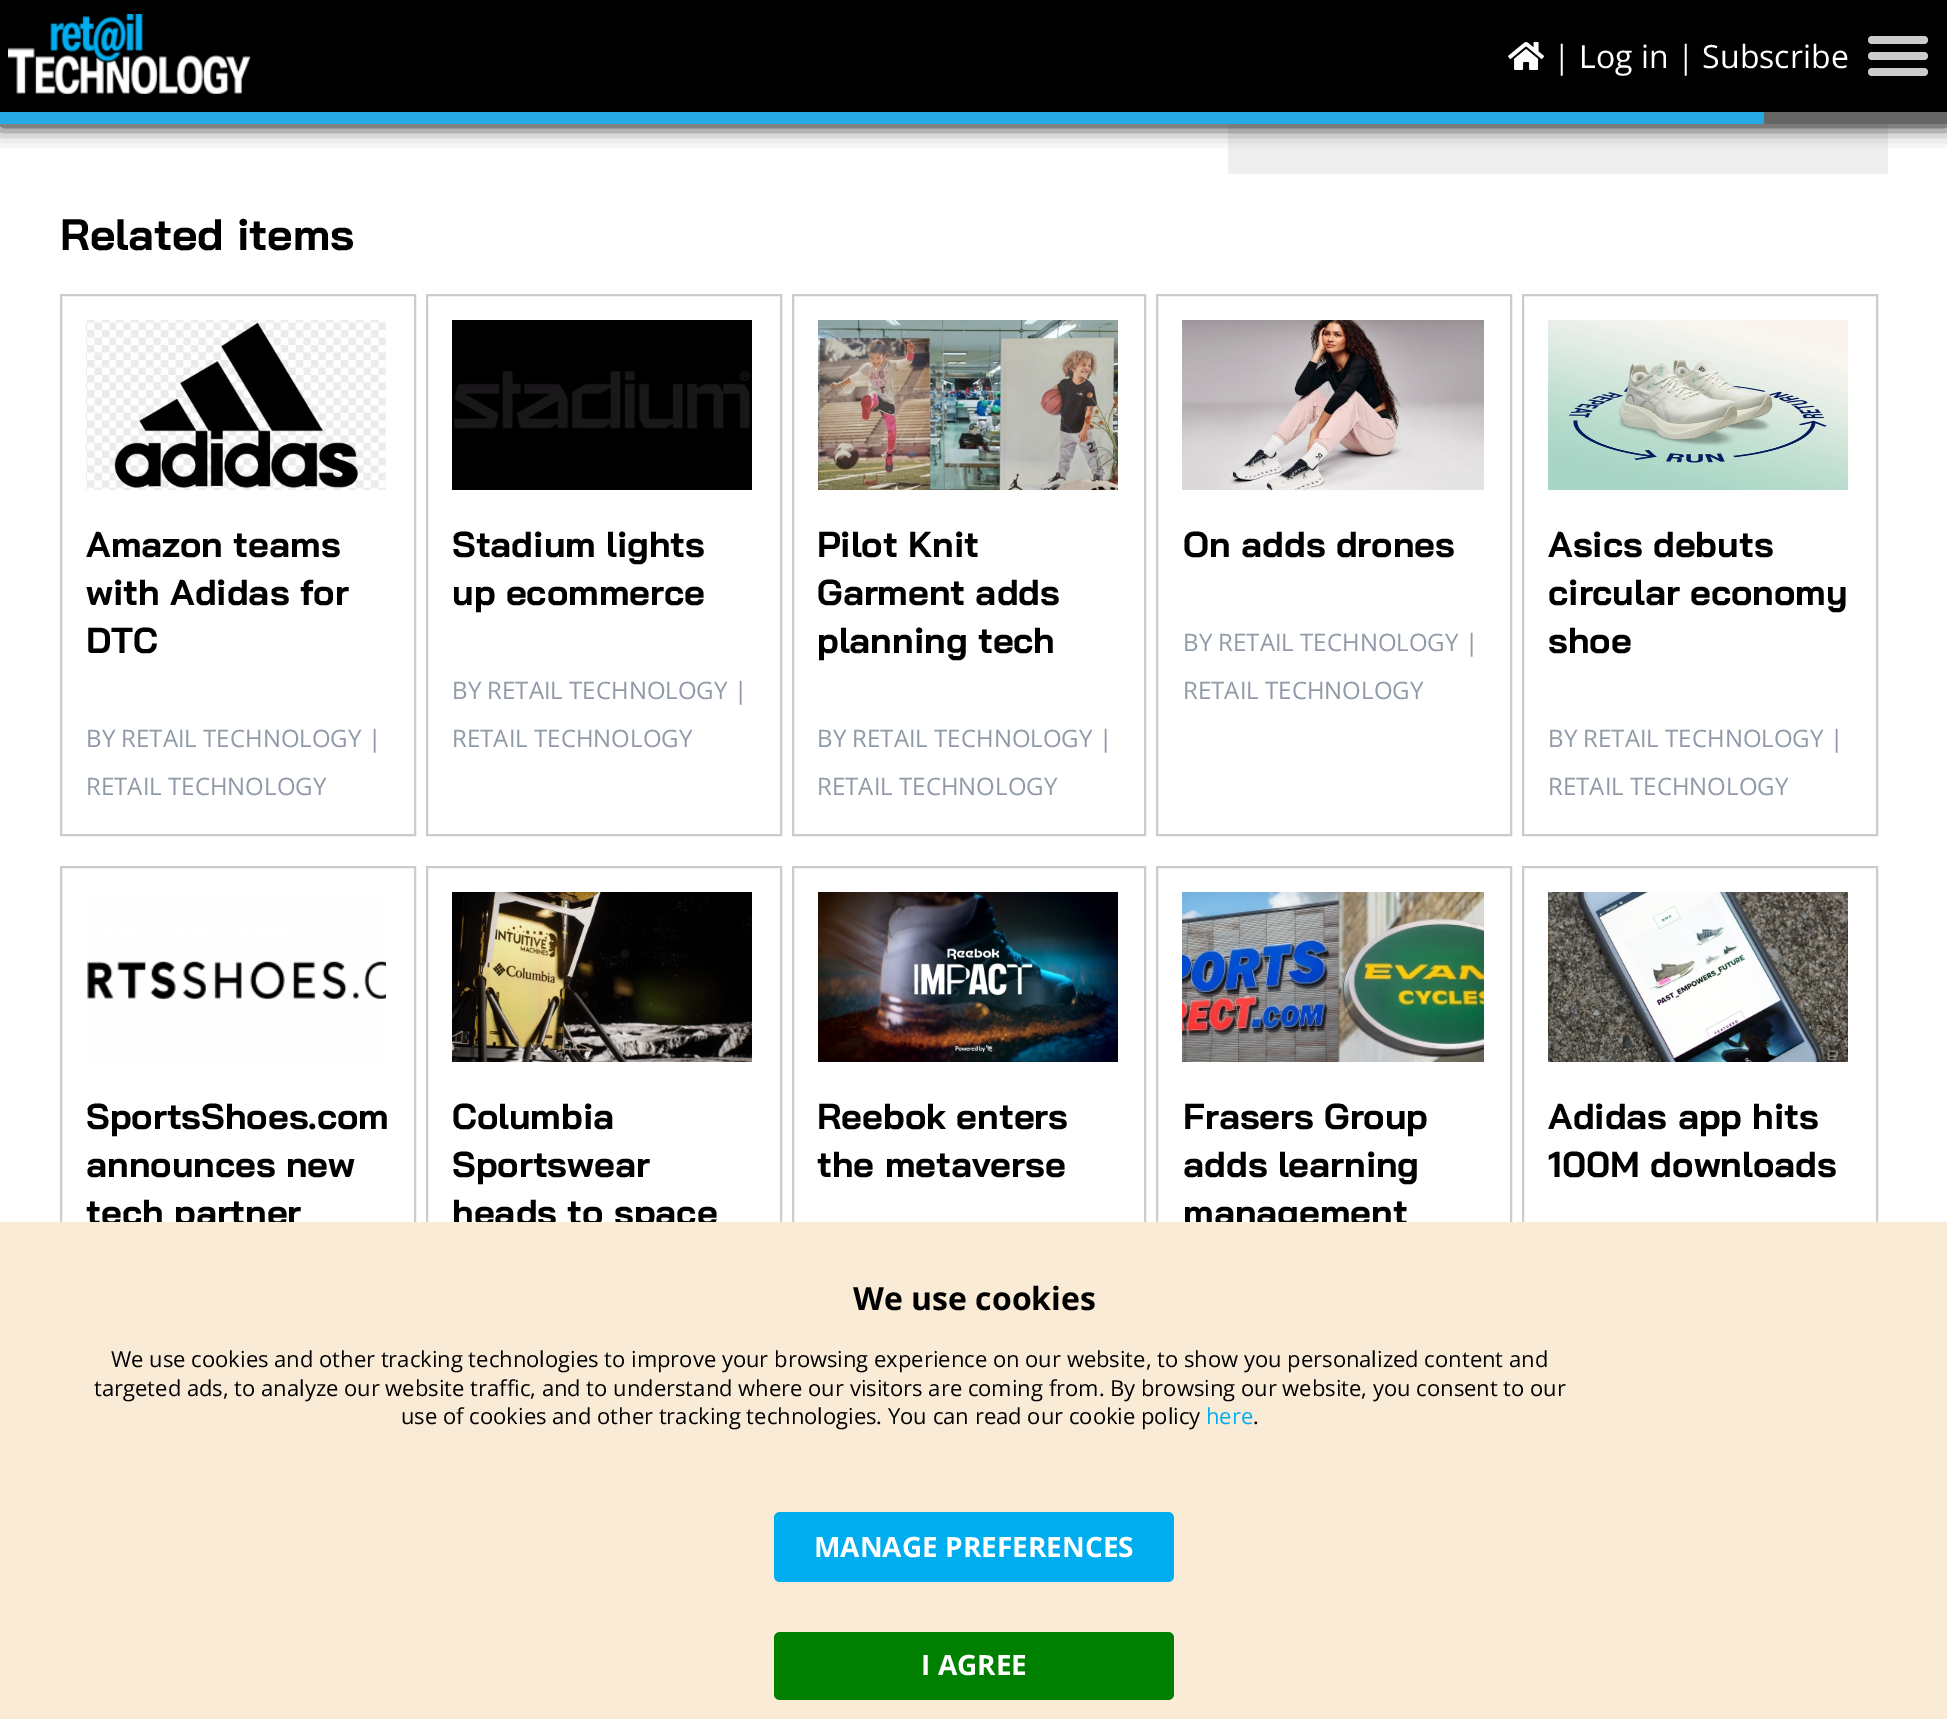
%!PS-Adobe-3.0
%%BoundingBox: 0 0 1947 1719
%%LanguageLevel: 3
%%Pages: 1
%%EndComments
%%BeginProlog
/f { fill } bind def
/w { setlinewidth } bind def
/fn { [ exch dup neg 0 0 3 -1 roll 0 0 ] selectfont } def
/tx { moveto show } def
/bx { rectfill } def
/al { dup .setfillconstantalpha .setstrokeconstantalpha } def
/rr { 5 dict begin { /r /h /w /y /x } { exch def } forall
  x r add y moveto x w add y 2 copy h add r arct x w add y h add x 1 index r arct
  x y h add x y r arct x y 2 copy exch w add exch r arct closepath end } def
/sh { 12 dict begin { /a /b /q /h /w /y /x } { exch def } forall gsave /was 0 def
  9 -2 -9 { dup b mul 4 div /e exch def 1 sub .425 mul 2.718 exch exp 1 add a .99 .min exch div /now exch def
    1 1 now sub 1 was sub div sub al /was now def
    w h .min e 2 mul add 0 gt { x e sub y e sub w e 2 mul add h e 2 mul add
      q e add b .6 mul add w h .min 2 div e add .min 0 .max rr fill } if } for grestore end } def
/im { 5 dict begin { /h /w /y /x /name } { exch def } forall
  gsave x y translate w h scale
  w h 8 [w 0 0 h 0 0] name (r) file false 3 colorimage grestore end } def
%%EndProlog
%%BeginSetup
<< /PageSize [1947 1719] /PageUsesTransparency true >> setpagedevice
%%EndSetup
%%Page: 1 1
0 .pushpdf14devicefilter
0 1719 translate 1 -1 scale
4 setmiterlimit
1 setgray
0 0 1947 1719 bx
0.937 setgray
1228 124 660 50 bx
0 setgray
0 2 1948 124 0 10 1 sh
0 0 1947 112 bx
(image0.raw) 8 14 243 80 im
(image1.raw) 1508 42 36 28 im
/OpenSans-Regular 32 fn
1 setgray
(| Log in | Subscribe) 1553 68 tx
0.8 setgray
1868 36 60 8 4 rr f
1868 52 60 8 4 rr f
1868 68 60 8 4 rr f
0.4 setgray
1764 112 183 12 bx
0.153 0.667 0.89 setrgbcolor
0 112 1764 12 bx
/BaiJamjuree-Bold 44 fn
0 setgray
(Related items) 60 250 tx
0.8 setgray
2 w
61 295 354 540 rectstroke
(image2.raw) 86 320 300 170 im
/BaiJamjuree-Bold 36 fn
0 setgray
(Amazon teams) 86 557 tx
(with Adidas for) 86 605 tx
(DTC) 86 653 tx
/OpenSans-Regular 24 fn
0.565 0.6 0.655 setrgbcolor
(BY RETAIL TECHNOLOGY |) 86 747 tx
(RETAIL TECHNOLOGY) 86 795 tx
0.8 setgray
427 295 354 540 rectstroke
(image3.raw) 452 320 300 170 im
/BaiJamjuree-Bold 36 fn
0 setgray
(Stadium lights) 452 557 tx
(up ecommerce) 452 605 tx
/OpenSans-Regular 24 fn
0.565 0.6 0.655 setrgbcolor
(BY RETAIL TECHNOLOGY |) 452 699 tx
(RETAIL TECHNOLOGY) 452 747 tx
0.8 setgray
793 295 352 540 rectstroke
(image4.raw) 818 320 300 170 im
/BaiJamjuree-Bold 36 fn
0 setgray
(Pilot Knit) 817 557 tx
(Garment adds) 817 605 tx
(planning tech) 817 653 tx
/OpenSans-Regular 24 fn
0.565 0.6 0.655 setrgbcolor
(BY RETAIL TECHNOLOGY |) 817 747 tx
(RETAIL TECHNOLOGY) 817 795 tx
0.8 setgray
1157 295 354 540 rectstroke
(image5.raw) 1182 320 302 170 im
/BaiJamjuree-Bold 36 fn
0 setgray
(On adds drones) 1183 557 tx
/OpenSans-Regular 24 fn
0.565 0.6 0.655 setrgbcolor
(BY RETAIL TECHNOLOGY |) 1183 651 tx
(RETAIL TECHNOLOGY) 1183 699 tx
0.8 setgray
1523 295 354 540 rectstroke
(image6.raw) 1548 320 300 170 im
/BaiJamjuree-Bold 36 fn
0 setgray
(Asics debuts) 1548 557 tx
(circular economy) 1548 605 tx
(shoe) 1548 653 tx
/OpenSans-Regular 24 fn
0.565 0.6 0.655 setrgbcolor
(BY RETAIL TECHNOLOGY |) 1548 747 tx
(RETAIL TECHNOLOGY) 1548 795 tx
0.8 setgray
61 867 354 588 rectstroke
(image7.raw) 86 892 300 170 im
/BaiJamjuree-Bold 36 fn
0 setgray
(SportsShoes.com) 86 1129 tx
(announces new) 86 1177 tx
(tech partner) 86 1225 tx
0.8 setgray
427 867 354 588 rectstroke
(image8.raw) 452 892 300 170 im
0 setgray
(Columbia) 452 1129 tx
(Sportswear) 452 1177 tx
(heads to space) 452 1225 tx
0.8 setgray
793 867 352 588 rectstroke
(image9.raw) 818 892 300 170 im
0 setgray
(Reebok enters) 817 1129 tx
(the metaverse) 817 1177 tx
0.8 setgray
1157 867 354 588 rectstroke
(image10.raw) 1182 892 302 170 im
0 setgray
(Frasers Group) 1183 1129 tx
(adds learning) 1183 1177 tx
(management) 1183 1225 tx
0.8 setgray
1523 867 354 588 rectstroke
(image11.raw) 1548 892 300 170 im
0 setgray
(Adidas app hits) 1548 1129 tx
(100M downloads) 1548 1177 tx
0.98 0.922 0.843 setrgbcolor
0 1222 1947 497 bx
/OpenSans-Bold 32 fn
0 setgray
(We use cookies) 853 1310 tx
/OpenSans-Regular 22 fn
(We use cookies and other tracking technologies to improve your browsing experience on our website, to show you personalized content and) 111 1367 tx
(targeted ads, to analyze our website traffic, and to understand where our visitors are coming from. By browsing our website, you consent to our) 94 1396 tx
(use of cookies and other tracking technologies. You can read our cookie policy) 401 1424 tx
0 0.682 0.937 setrgbcolor
(here) 1206 1424 tx
0 setgray
(.) 1253 1424 tx
0 0.682 0.937 setrgbcolor
774 1512 400 70 6 rr f
/OpenSans-Bold 28 fn
1 setgray
(MANAGE PREFERENCES) 814 1557 tx
0 0.502 0 setrgbcolor
774 1632 400 68 6 rr f
1 setgray
(I AGREE) 921 1675 tx
.poppdf14devicefilter showpage
%%EOF
